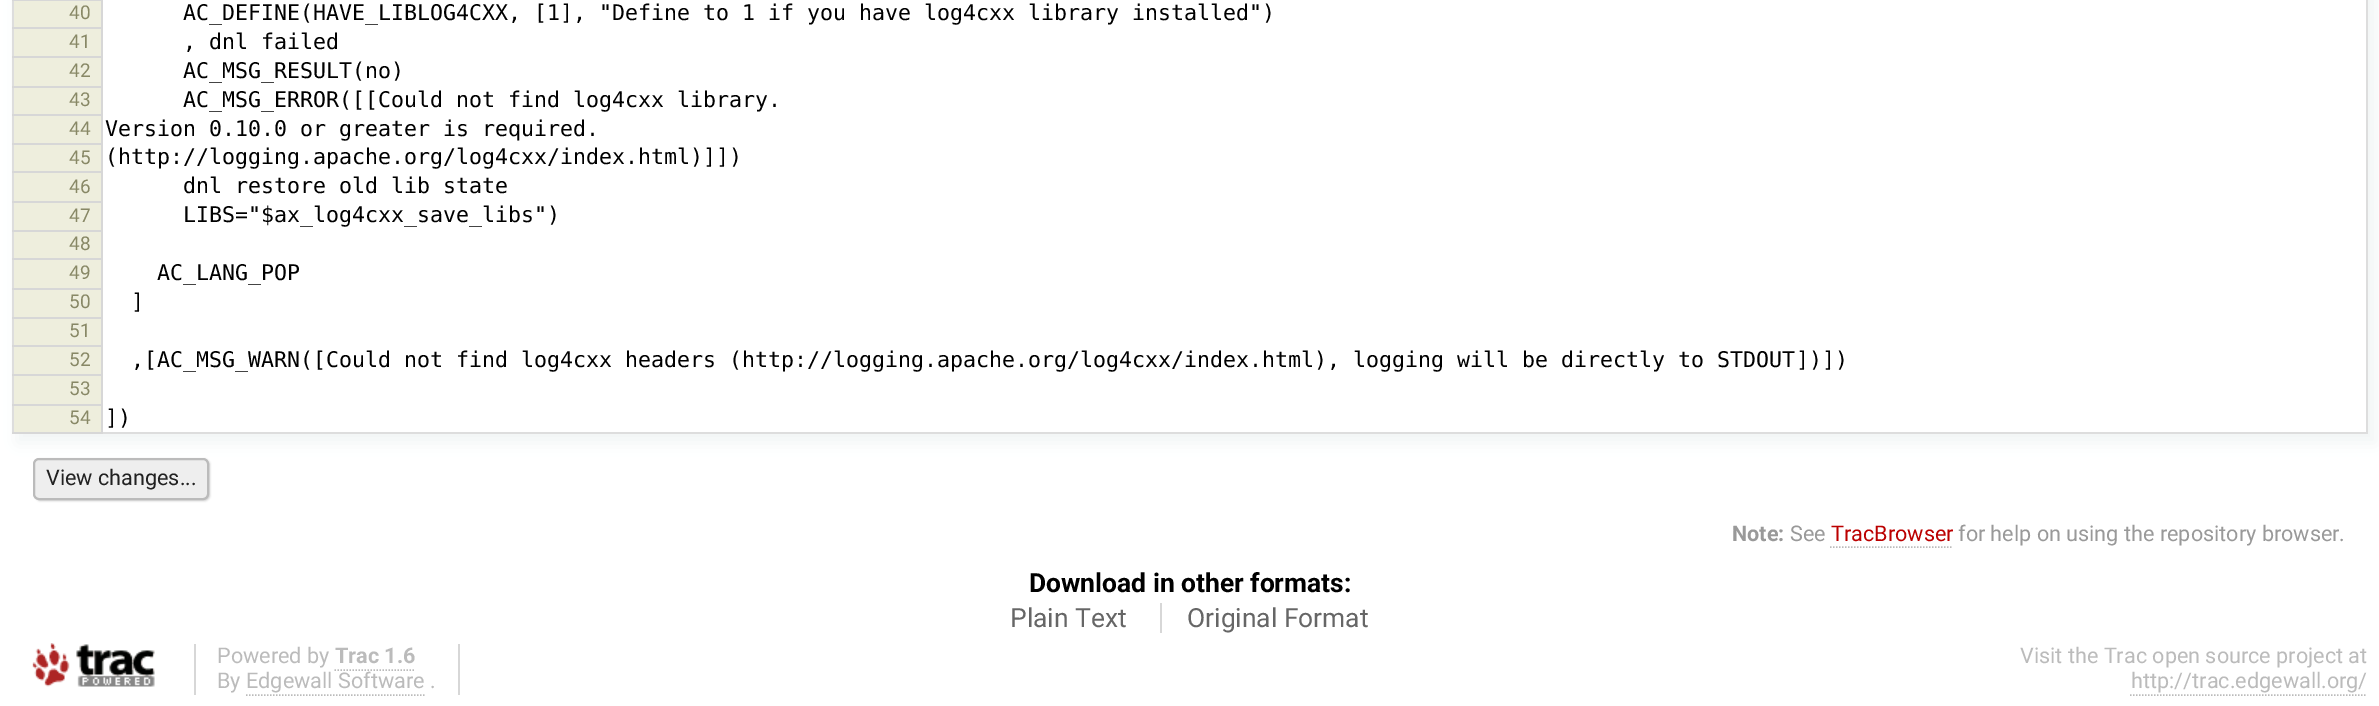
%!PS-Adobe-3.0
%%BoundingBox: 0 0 2379 706
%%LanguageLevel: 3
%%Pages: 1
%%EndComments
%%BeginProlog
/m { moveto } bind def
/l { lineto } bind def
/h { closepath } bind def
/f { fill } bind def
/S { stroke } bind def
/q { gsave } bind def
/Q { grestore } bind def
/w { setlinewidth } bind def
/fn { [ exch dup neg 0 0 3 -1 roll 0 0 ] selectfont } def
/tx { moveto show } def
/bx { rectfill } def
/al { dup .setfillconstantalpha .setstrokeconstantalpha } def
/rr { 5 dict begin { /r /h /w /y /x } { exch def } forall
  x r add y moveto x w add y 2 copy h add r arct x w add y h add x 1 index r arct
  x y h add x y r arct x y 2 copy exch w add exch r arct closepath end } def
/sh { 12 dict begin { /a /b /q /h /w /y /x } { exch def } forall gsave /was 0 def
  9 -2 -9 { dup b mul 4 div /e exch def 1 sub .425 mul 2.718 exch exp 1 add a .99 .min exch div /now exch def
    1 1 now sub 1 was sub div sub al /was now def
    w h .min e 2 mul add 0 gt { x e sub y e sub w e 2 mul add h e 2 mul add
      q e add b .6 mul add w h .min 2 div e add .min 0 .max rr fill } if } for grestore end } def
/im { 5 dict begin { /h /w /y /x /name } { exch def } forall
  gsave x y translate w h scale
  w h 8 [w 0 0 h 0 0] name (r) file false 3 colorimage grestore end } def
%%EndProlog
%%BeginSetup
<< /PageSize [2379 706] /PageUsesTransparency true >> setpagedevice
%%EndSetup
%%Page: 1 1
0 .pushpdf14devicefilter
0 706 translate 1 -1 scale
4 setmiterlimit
1 setgray
0 0 2379 706 bx
q
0 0 m 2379 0 l 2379 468 l 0 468 l h 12 -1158 m 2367 -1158 l 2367 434 l 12 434 l h eoclip newpath
0.824 0.843 0.863 setrgbcolor
17 -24 2359 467 0 8 0.3 sh
Q
0.867 setgray
2366 0 2 434 bx
103 432 2264 2 bx
12 0 2 434 bx
0.843 setgray
101 0 2 434 bx
12 0 90 1 bx
0.933 0.933 0.867 setrgbcolor
14 1 87 26 bx
0.843 setgray
12 27 90 2 bx
/Roboto-Regular 19 fn
0.533 0.533 0.4 setrgbcolor
(40) 69 19 tx
/DejaVuSansMono-Regular 21.6 fn
0 setgray
(AC_DEFINE\(HAVE_LIBLOG4CXX, [1], "Define to 1 if you have log4cxx library installed"\)) 183 20 tx
0.933 0.933 0.867 setrgbcolor
14 29 87 27 bx
0.843 setgray
12 56 90 2 bx
/Roboto-Regular 19 fn
0.533 0.533 0.4 setrgbcolor
(41) 69 48 tx
/DejaVuSansMono-Regular 21.6 fn
0 setgray
(, dnl failed) 183 49 tx
0.933 0.933 0.867 setrgbcolor
14 58 87 28 bx
0.843 setgray
12 86 90 2 bx
/Roboto-Regular 19 fn
0.533 0.533 0.4 setrgbcolor
(42) 69 77 tx
/DejaVuSansMono-Regular 21.6 fn
0 setgray
(AC_MSG_RESULT\(no\)) 183 78 tx
0.933 0.933 0.867 setrgbcolor
14 88 87 26 bx
0.843 setgray
12 114 90 2 bx
/Roboto-Regular 19 fn
0.533 0.533 0.4 setrgbcolor
(43) 69 106 tx
/DejaVuSansMono-Regular 21.6 fn
0 setgray
(AC_MSG_ERROR\([[Could not find log4cxx library.) 183 107 tx
0.933 0.933 0.867 setrgbcolor
14 116 87 27 bx
0.843 setgray
12 143 90 2 bx
/Roboto-Regular 19 fn
0.533 0.533 0.4 setrgbcolor
(44) 69 135 tx
/DejaVuSansMono-Regular 21.6 fn
0 setgray
(Version 0.10.0 or greater is required.) 105 136 tx
0.933 0.933 0.867 setrgbcolor
14 145 87 26 bx
0.843 setgray
12 171 90 2 bx
/Roboto-Regular 19 fn
0.533 0.533 0.4 setrgbcolor
(45) 69 164 tx
/DejaVuSansMono-Regular 21.6 fn
0 setgray
(\(http://logging.apache.org/log4cxx/index.html\)]]\)) 105 164 tx
0.933 0.933 0.867 setrgbcolor
14 173 87 28 bx
0.843 setgray
12 201 90 2 bx
/Roboto-Regular 19 fn
0.533 0.533 0.4 setrgbcolor
(46) 69 193 tx
/DejaVuSansMono-Regular 21.6 fn
0 setgray
(dnl restore old lib state) 183 193 tx
0.933 0.933 0.867 setrgbcolor
14 203 87 27 bx
0.843 setgray
12 230 90 2 bx
/Roboto-Regular 19 fn
0.533 0.533 0.4 setrgbcolor
(47) 69 222 tx
/DejaVuSansMono-Regular 21.6 fn
0 setgray
(LIBS="$ax_log4cxx_save_libs"\)) 183 222 tx
0.933 0.933 0.867 setrgbcolor
14 232 87 26 bx
0.843 setgray
12 258 90 2 bx
/Roboto-Regular 19 fn
0.533 0.533 0.4 setrgbcolor
(48) 69 250 tx
0.933 0.933 0.867 setrgbcolor
14 260 87 28 bx
0.843 setgray
12 288 90 2 bx
0.533 0.533 0.4 setrgbcolor
(49) 69 279 tx
/DejaVuSansMono-Regular 21.6 fn
0 setgray
(AC_LANG_POP) 157 280 tx
0.933 0.933 0.867 setrgbcolor
14 290 87 27 bx
0.843 setgray
12 317 90 2 bx
/Roboto-Regular 19 fn
0.533 0.533 0.4 setrgbcolor
(50) 69 308 tx
/DejaVuSansMono-Regular 21.6 fn
0 setgray
(]) 131 309 tx
0.933 0.933 0.867 setrgbcolor
14 319 87 26 bx
0.843 setgray
12 345 90 2 bx
/Roboto-Regular 19 fn
0.533 0.533 0.4 setrgbcolor
(51) 69 337 tx
0.933 0.933 0.867 setrgbcolor
14 347 87 27 bx
0.843 setgray
12 374 90 2 bx
0.533 0.533 0.4 setrgbcolor
(52) 69 366 tx
/DejaVuSansMono-Regular 21.6 fn
0 setgray
(,[AC_MSG_WARN\([Could not find log4cxx headers \(http://logging.apache.org/log4cxx/index.html\), logging will be directly to STDOUT]\)]\)) 131 367 tx
0.933 0.933 0.867 setrgbcolor
14 376 87 28 bx
0.843 setgray
12 404 90 2 bx
/Roboto-Regular 19 fn
0.533 0.533 0.4 setrgbcolor
(53) 69 395 tx
0.933 0.933 0.867 setrgbcolor
14 406 87 26 bx
0.843 setgray
12 432 90 2 bx
0.533 0.533 0.4 setrgbcolor
(54) 69 424 tx
/DejaVuSansMono-Regular 21.6 fn
0 setgray
(]\)) 105 425 tx
0.8 setgray
35 459 175 42 6 1 1 sh
0.933 setgray
34 459 174 40 5 rr q f Q
0.733 setgray
2 w
S
/Roboto-Regular 21.6 fn
0.133 setgray
(View changes...) 46 485 tx
/Roboto-Bold 21.6 fn
0.6 setgray
(Note:) 1732 541 tx
/Roboto-Regular 21.6 fn
(See) 1790 541 tx
0.733 0 0 setrgbcolor
(TracBrowser) 1831 541 tx
0.733 setgray
1.5 w
[1.5 1.5] 0 setdash
1830 547 m 1953 547 l S
0.6 setgray
(for help on using the repository browser.) 1958 541 tx
/Roboto-Bold 26.4 fn
0 setgray
(Download in other formats:) 1029 592 tx
/Roboto-Regular 26.4 fn
0.4 setgray
(Plain Text) 1010 627 tx
0.843 setgray
1160 603 2 30 bx
0.4 setgray
(Original Format) 1187 627 tx
(image0.raw) 32 643 123 44 im
0.843 setgray
458 644 2 51 bx
194 644 2 51 bx
/Roboto-Regular 21.6 fn
0.733 setgray
(Powered by) 217 663 tx
/Roboto-Bold 21.6 fn
(Trac 1.6) 335 663 tx
334.5 670 m 415.5 670 l S
/Roboto-Regular 21.6 fn
(By Edgewall Software .) 217 688 tx
246 695 m 424.5 695 l S
(Visit the Trac open source project at) 2020 663 tx
(http://trac.edgewall.org/) 2131 688 tx
2130 695 m 2367 695 l S
.poppdf14devicefilter showpage
%%EOF
